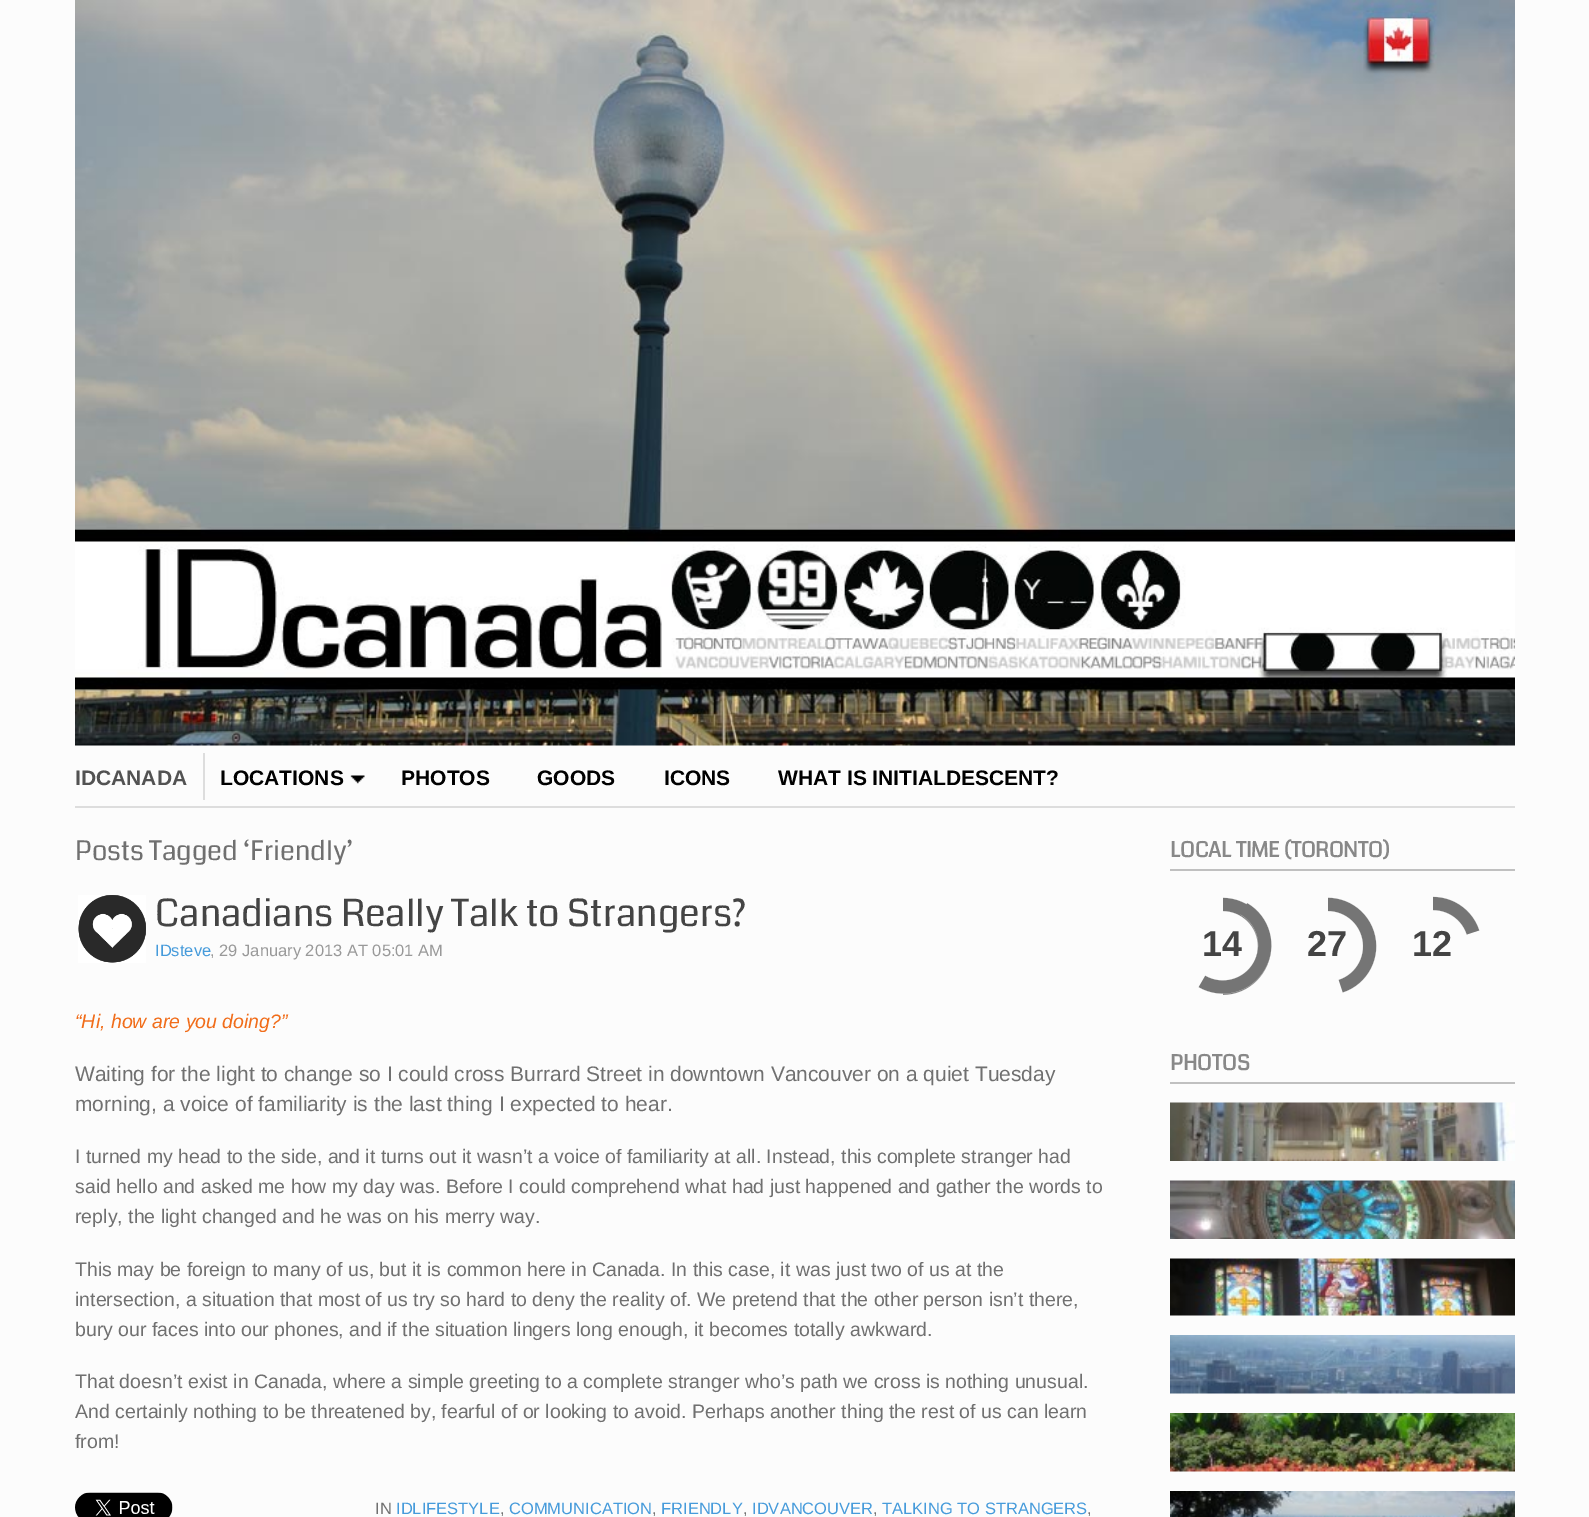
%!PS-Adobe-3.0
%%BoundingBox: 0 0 1589 1517
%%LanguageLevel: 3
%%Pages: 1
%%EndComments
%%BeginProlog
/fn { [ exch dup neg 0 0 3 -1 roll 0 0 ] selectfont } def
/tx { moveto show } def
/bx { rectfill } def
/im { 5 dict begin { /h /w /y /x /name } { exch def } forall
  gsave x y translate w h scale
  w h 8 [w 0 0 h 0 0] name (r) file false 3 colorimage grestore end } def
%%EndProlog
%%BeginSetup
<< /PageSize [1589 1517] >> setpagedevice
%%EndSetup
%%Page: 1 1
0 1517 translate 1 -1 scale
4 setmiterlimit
0.988 setgray
0 0 1589 1517 bx
0.867 setgray
75 806 1440 2 bx
(image0.raw) 75 0 1440 746 im
203 753 2 47 bx
/LiberationSans-Bold 21 fn
0.322 setgray
(IDCANADA) 75 785 tx
(image1.raw) 350 775 15 9 im
0 setgray
(LOCATIONS) 220 785 tx
(PHOTOS) 401 785 tx
(GOODS) 537 785 tx
(ICONS) 664 785 tx
(WHAT IS INITIALDESCENT?) 778 785 tx
/Coda-Regular 27 fn
0.439 setgray
(Posts Tagged ‘Friendly’) 75 860 tx
(image2.raw) 78 895 68 68 im
/Coda-Regular 37.5 fn
0.267 setgray
(Canadians Really Talk to Strangers?) 155 926 tx
/LiberationSans-Regular 16.5 fn
0.275 0.608 0.859 setrgbcolor
(IDsteve) 155 956 tx
0.6 setgray
(, 29 January 2013 AT 05:01 AM) 210 956 tx
/LiberationSans-Italic 19.5 fn
0.945 0.427 0.102 setrgbcolor
(“Hi, how are you doing?”) 75 1028 tx
/LiberationSans-Regular 21 fn
0.439 setgray
(Waiting for the light to change so I could cross Burrard Street in downtown Vancouver on a quiet Tuesday) 75 1081 tx
(morning, a voice of familiarity is the last thing I expected to hear.) 75 1111 tx
/LiberationSans-Regular 19.5 fn
(I turned my head to the side, and it turns out it wasn’t a voice of familiarity at all. Instead, this complete stranger had) 75 1163 tx
(said hello and asked me how my day was. Before I could comprehend what had just happened and gather the words to) 75 1193 tx
(reply, the light changed and he was on his merry way.) 75 1223 tx
(This may be foreign to many of us, but it is common here in Canada. In this case, it was just two of us at the) 75 1276 tx
(intersection, a situation that most of us try so hard to deny the reality of. We pretend that the other person isn’t there,) 75 1306 tx
(bury our faces into our phones, and if the situation lingers long enough, it becomes totally awkward.) 75 1336 tx
(That doesn’t exist in Canada, where a simple greeting to a complete stranger who’s path we cross is nothing unusual.) 75 1388 tx
(And certainly nothing to be threatened by, fearful of or looking to avoid. Perhaps another thing the rest of us can learn) 75 1418 tx
(from!) 75 1448 tx
(image3.raw) 75 1492 98 25 im
/LiberationSans-Regular 16.5 fn
(IN) 375 1514 tx
0.275 0.608 0.859 setrgbcolor
(IDLIFESTYLE) 396 1514 tx
0.439 setgray
(,) 500 1514 tx
0.275 0.608 0.859 setrgbcolor
(COMMUNICATION) 509 1514 tx
0.439 setgray
(,) 652 1514 tx
0.275 0.608 0.859 setrgbcolor
(FRIENDLY) 661 1514 tx
0.439 setgray
(,) 743 1514 tx
0.275 0.608 0.859 setrgbcolor
(IDVANCOUVER) 752 1514 tx
0.439 setgray
(,) 873 1514 tx
0.275 0.608 0.859 setrgbcolor
(TALKING TO STRANGERS) 882 1514 tx
0.439 setgray
(,) 1087 1514 tx
0.753 setgray
1170 869 345 2 bx
/Coda-Bold 21 fn
0.533 setgray
(LOCAL TIME \(TORONTO\)) 1170 857 tx
(image4.raw) 1223 897 49 98 im
(image5.raw) 1198 903 74 91 im
/LiberationSans-Bold 36 fn
0.267 setgray
(14) 1202 956 tx
(image6.raw) 1328 897 49 96 im
(27) 1307 956 tx
(image7.raw) 1433 896 47 39 im
(12) 1412 956 tx
0.753 setgray
1170 1082 345 2 bx
/Coda-Bold 21 fn
0.533 setgray
(PHOTOS) 1170 1070 tx
(image8.raw) 1170 1102 345 59 im
(image9.raw) 1170 1180 345 59 im
(image10.raw) 1170 1258 345 58 im
(image11.raw) 1170 1335 345 59 im
(image12.raw) 1170 1413 345 59 im
(image13.raw) 1170 1491 345 26 im
showpage
%%EOF
